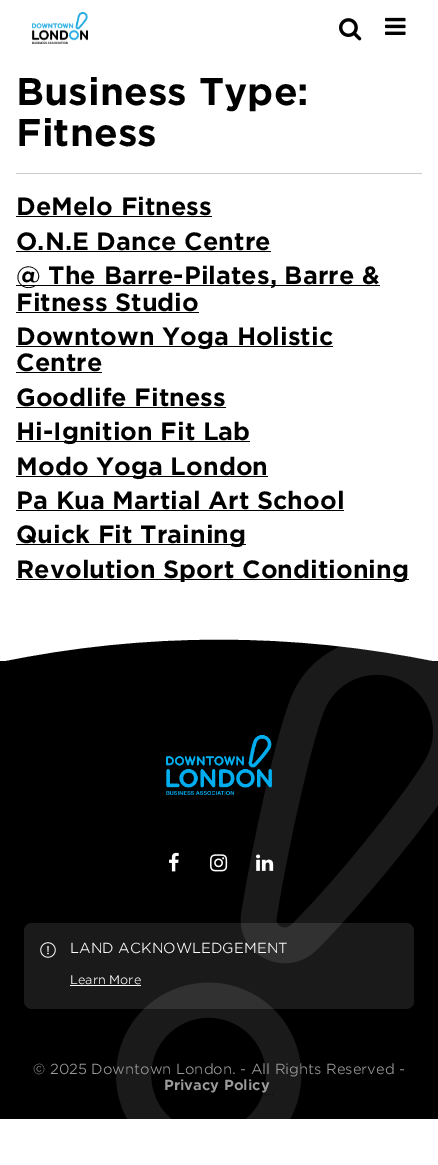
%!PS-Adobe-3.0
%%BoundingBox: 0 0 438 1165
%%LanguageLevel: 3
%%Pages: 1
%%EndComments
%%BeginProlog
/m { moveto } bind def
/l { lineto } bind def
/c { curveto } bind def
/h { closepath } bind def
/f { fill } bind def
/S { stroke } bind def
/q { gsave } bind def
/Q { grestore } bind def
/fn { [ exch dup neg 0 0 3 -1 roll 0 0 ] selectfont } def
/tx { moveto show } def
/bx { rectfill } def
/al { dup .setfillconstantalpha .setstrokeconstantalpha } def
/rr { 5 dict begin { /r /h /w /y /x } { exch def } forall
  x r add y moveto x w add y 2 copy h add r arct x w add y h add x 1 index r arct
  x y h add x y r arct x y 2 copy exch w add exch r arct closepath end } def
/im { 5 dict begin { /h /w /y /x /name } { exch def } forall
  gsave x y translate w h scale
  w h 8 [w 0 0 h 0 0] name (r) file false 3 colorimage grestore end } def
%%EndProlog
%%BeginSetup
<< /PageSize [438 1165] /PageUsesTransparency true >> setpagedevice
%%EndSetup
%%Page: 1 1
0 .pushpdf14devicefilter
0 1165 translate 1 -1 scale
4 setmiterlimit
1 setgray
0 0 438 1165 bx
(image0.raw) 32 12 56 32 im
(image1.raw) 339 18 23 23 im
(image2.raw) 385 17 21 18 im
/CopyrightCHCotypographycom-Regular 37 fn
0 setgray
(Business Type:) 16 105 tx
(Fitness) 16 146 tx
0.792 setgray
16 173 406 1 bx
/CopyrightCHCotypographycom-Regular 24 fn
0 setgray
(DeMelo Fitness) 16 215 tx
16 216 196 1 bx
(O.N.E Dance Centre) 16 250 tx
16 251 255 1 bx
16 285 364 1 bx
(@ The Barre-Pilates, Barre &) 16 284 tx
(Fitness Studio) 16 311 tx
16 312 183 1 bx
16 346 317 1 bx
(Downtown Yoga Holistic) 16 345 tx
(Centre) 16 371 tx
16 372 86 1 bx
(Goodlife Fitness) 16 406 tx
16 407 210 1 bx
16 441 234 1 bx
(Hi-Ignition Fit Lab) 16 440 tx
16 476 252 1 bx
(Modo Yoga London) 16 475 tx
(Pa Kua Martial Art School) 16 509 tx
16 510 328 1 bx
16 544 230 1 bx
(Quick Fit Training) 16 543 tx
16 579 393 1 bx
(Revolution Sport Conditioning) 16 578 tx
0 639 438 480 bx
(image3.raw) 116 646 322 473 im
q
0 639 438 22 rectclip
1 setgray
0 639 m 438 639 l 438 662 l 294 632 144 632 0 662 c h eofill
Q
(image4.raw) 166 734 106 61 im
(image5.raw) 169 852 10 20 im
(image6.raw) 210 854 18 18 im
(image7.raw) 256 854 18 17 im
0.1 al
1 setgray
24 923 390 86 8 rr f
1 al
(image8.raw) 40 942 16 16 im
/CopyrightCHCotypographycom-Light 14 fn
(LAND ACKNOWLEDGEMENT) 70 953 tx
/CopyrightCHCotypographycom-Light 12 fn
(Learn More) 70 984 tx
70 985 71 1 bx
/CopyrightCHCotypographycom-Light 14 fn
0.608 setgray
(© 2025 Downtown London. - All Rights Reserved) 33 1074 tx
(-) 399 1074 tx
0.5 al
0 setgray
[1 1] 0 setdash
164 1094.5 m 274 1094.5 l S
/CopyrightCHCotypographycom-Regular 14 fn
1 al
0.608 setgray
(Privacy Policy) 164 1090 tx
.poppdf14devicefilter showpage
%%EOF
